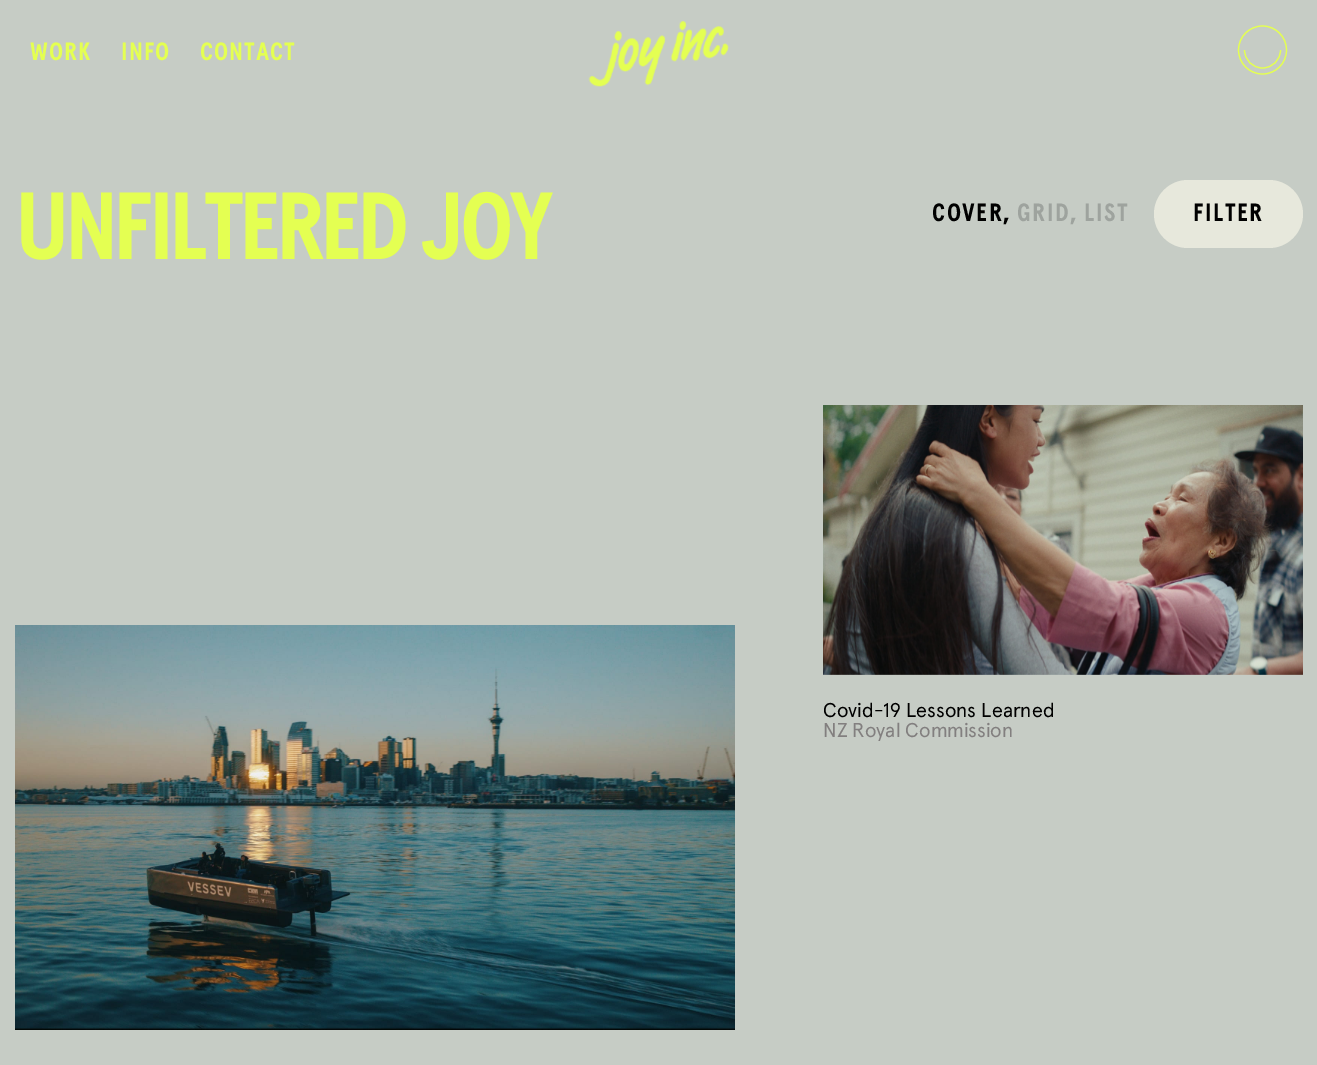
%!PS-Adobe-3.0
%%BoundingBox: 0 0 1317 1065
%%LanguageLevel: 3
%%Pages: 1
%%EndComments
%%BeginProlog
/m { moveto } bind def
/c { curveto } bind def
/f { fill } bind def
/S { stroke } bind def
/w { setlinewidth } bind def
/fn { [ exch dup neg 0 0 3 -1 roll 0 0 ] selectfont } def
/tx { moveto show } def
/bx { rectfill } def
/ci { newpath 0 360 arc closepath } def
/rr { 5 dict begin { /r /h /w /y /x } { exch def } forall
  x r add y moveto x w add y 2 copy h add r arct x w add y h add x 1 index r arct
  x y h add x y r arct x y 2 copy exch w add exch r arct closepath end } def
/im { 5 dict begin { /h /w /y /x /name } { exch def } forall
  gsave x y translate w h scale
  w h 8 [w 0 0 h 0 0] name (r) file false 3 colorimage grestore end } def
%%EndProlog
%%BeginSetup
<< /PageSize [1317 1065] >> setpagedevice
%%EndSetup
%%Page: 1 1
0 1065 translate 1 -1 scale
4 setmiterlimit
0.776 0.8 0.773 setrgbcolor
0 0 1317 1065 bx
/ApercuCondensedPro-Bold 25 fn
0.894 1 0.322 setrgbcolor
30 60 m 1 0 (WORK) ashow
121 60 m 1 0 (INFO) ashow
200 60 m 1 0 (CONTACT) ashow
(image0.raw) 588 21 141 66 im
1.2 w
1262.5 50 24 ci S
1280.5 50 m 1280.5 60 1272.5 68 1262.5 68 c 1252.5 68 1244.5 60 1244.5 50 c S
/ApercuCondensedPro-Bold 95 fn
15 259 m -4.75 0 (UNFILTERED JOY) ashow
/ApercuCondensedPro-Bold 25 fn
0 setgray
932 221 m 1.5 0 (COVER,) ashow
0.62 0.639 0.62 setrgbcolor
1017 221 m 1.5 0 (GRID,) ashow
1084 221 m 1.5 0 (LIST) ashow
0.906 0.91 0.863 setrgbcolor
1154 180 149 68 34 rr f
0 setgray
1193 221 m 1.5 0 (FILTER) ashow
(image1.raw) 15 625 720 405 im
(image2.raw) 823 405 480 270 im
/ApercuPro-Regular 20 fn
(Covid-19 Lessons Learned) 823 717 tx
0.51 0.498 0.498 setrgbcolor
(NZ Royal Commission) 823 737 tx
showpage
%%EOF
